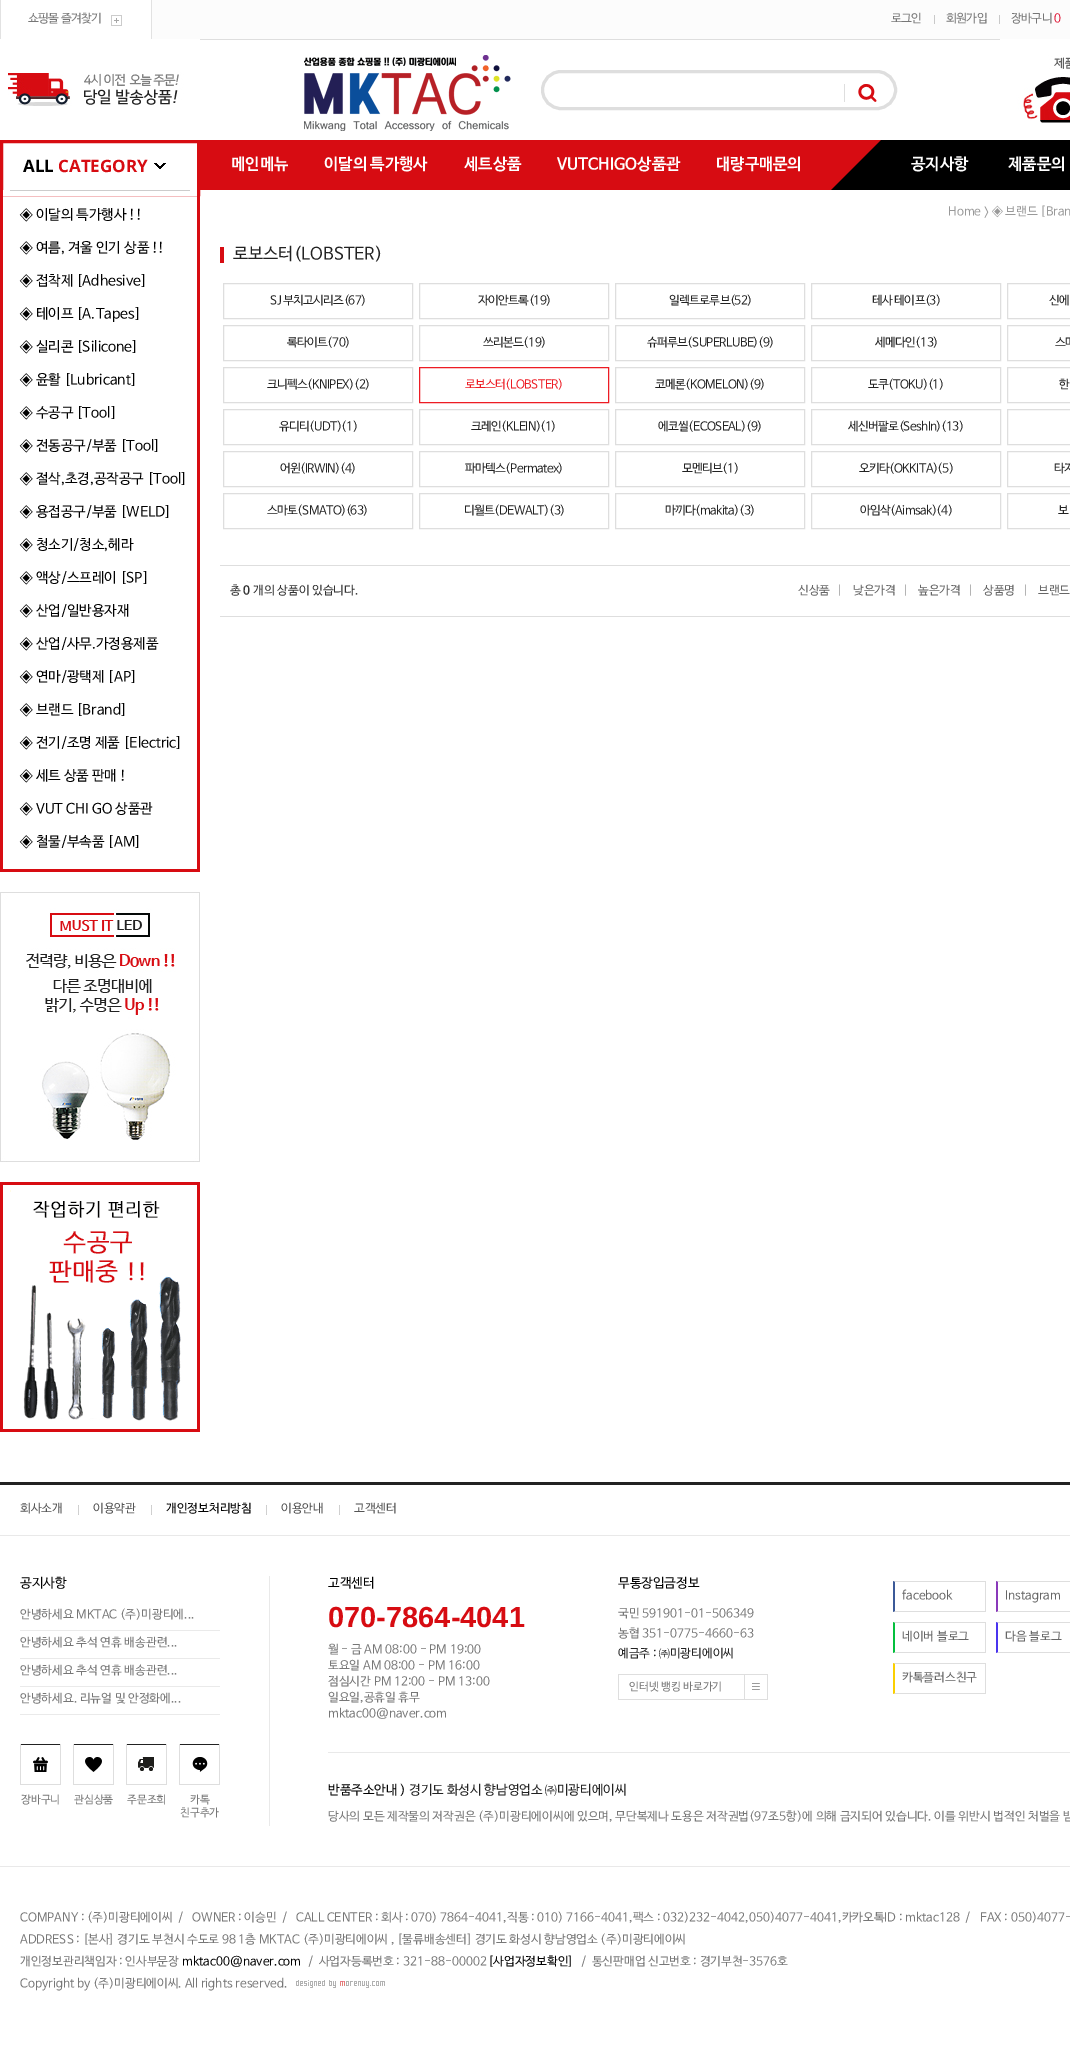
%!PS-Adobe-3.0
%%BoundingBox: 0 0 1070 2070
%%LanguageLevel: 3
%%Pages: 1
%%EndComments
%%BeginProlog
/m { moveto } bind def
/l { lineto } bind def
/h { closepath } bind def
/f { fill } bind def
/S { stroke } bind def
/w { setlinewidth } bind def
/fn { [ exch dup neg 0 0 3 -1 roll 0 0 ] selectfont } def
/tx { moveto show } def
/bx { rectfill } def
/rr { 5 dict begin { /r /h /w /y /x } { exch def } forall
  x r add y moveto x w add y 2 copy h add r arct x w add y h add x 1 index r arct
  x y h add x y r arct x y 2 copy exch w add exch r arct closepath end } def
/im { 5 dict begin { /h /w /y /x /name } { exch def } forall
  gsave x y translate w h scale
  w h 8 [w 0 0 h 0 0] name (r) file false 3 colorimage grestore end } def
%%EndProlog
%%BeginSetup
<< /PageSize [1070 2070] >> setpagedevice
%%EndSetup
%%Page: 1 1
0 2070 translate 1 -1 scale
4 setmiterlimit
1 setgray
0 0 1070 2070 bx
0.988 setgray
152 0 918 39 bx
0.871 setgray
200 39 800 1 bx
(image0.raw) 111 15 11 11 im
0.886 setgray
151 0 1 40 bx
0 0 1 40 bx
/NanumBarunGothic-Regular 12 fn
0.467 setgray
28 22 m -0.5 0 (쇼핑몰 즐겨찾기) ashow
891 22 m -0.5 0 (로그인) ashow
0.788 setgray
934 15 1 9 bx
0.467 setgray
946 22 m -0.5 0 (회원가입) ashow
0.788 setgray
999 15 1 9 bx
0.467 setgray
1011 22 m -0.5 0 (장바구니) ashow
0.878 0.09 0.216 setrgbcolor
1054 22 m -0.5 0 (0) ashow
(image1.raw) 0 39 200 67 im
(image2.raw) 304 55 207 76 im
0.871 setgray
3 w
542.5 71.5 353 37 18.5 rr S
(image3.raw) 844 84 33 18 im
(image4.raw) 1000 39 70 84 im
0 setgray
881 140 189 50 bx
(image5.raw) 154 163 12 6 im
0.843 0.047 0.071 setrgbcolor
1.5 141.5 197 53 rectstroke
/OpenSans-Bold 17 fn
0 setgray
(ALL) 23 172 tx
0.843 0.047 0.071 setrgbcolor
(CATEGORY) 58 172 tx
200 140 630 50 bx
/NanumBarunGothic-Bold 16 fn
1 setgray
(메인메뉴) 231 169 tx
(이달의 특가행사) 324 169 tx
(세트상품) 464 169 tx
(VUTCHIGO상품관) 557 169 tx
(대량구매문의) 716 169 tx
(image6.raw) 830 140 51 50 im
(공지사항) 911 169 tx
(제품문의) 1008 169 tx
0 190 200 6 bx
0.843 0.047 0.071 setrgbcolor
197 190 3 682 bx
0 869 200 3 bx
0 190 3 682 bx
0.8 setgray
10 190 180 1 bx
/NanumBarunGothic-Regular 14 fn
0 setgray
(◈ 이달의 특가행사 !!) 20 219 tx
(◈ 여름, 겨울 인기 상품 !!) 20 252 tx
(◈ 접착제 [Adhesive]) 20 285 tx
(◈ 테이프 [A.Tapes]) 20 318 tx
(◈ 실리콘 [Silicone]) 20 351 tx
(◈ 윤활 [Lubricant]) 20 384 tx
(◈ 수공구 [Tool]) 20 417 tx
(◈ 전동공구/부품 [Tool]) 20 450 tx
(◈ 절삭,초경,공작공구 [Tool]) 20 483 tx
(◈ 용접공구/부품 [WELD]) 20 516 tx
(◈ 청소기/청소,헤라) 20 549 tx
(◈ 액상/스프레이 [SP]) 20 582 tx
(◈ 산업/일반용자재) 20 615 tx
(◈ 산업/사무.가정용제품) 20 648 tx
(◈ 연마/광택제 [AP]) 20 681 tx
(◈ 브랜드 [Brand]) 20 714 tx
(◈ 전기/조명 제품 [Electric]) 20 747 tx
(◈ 세트 상품 판매 !) 20 780 tx
(◈ VUT CHI GO 상품관) 20 813 tx
(◈ 철물/부속품 [AM]) 20 846 tx
(image7.raw) 0 892 200 270 im
(image8.raw) 0 1182 200 250 im
/NanumBarunGothic-Regular 12 fn
0.6 setgray
(Home) 948 215 tx
(>) 984 216 tx
(◈ 브랜드 [Bran) 992 215 tx
0.843 0.047 0.071 setrgbcolor
220 247 4 16 bx
/NanumBarunGothic-Regular 17 fn
0.133 setgray
(로보스터\(LOBSTER\)) 233 259 tx
0.871 setgray
1 w
223.5 283.5 189 35 rectstroke
/NanumBarunGothic-Regular 12 fn
0.133 setgray
270 304 m -0.6 0 (SJ 부치고시리즈\(67\)) ashow
0.871 setgray
419.5 283.5 189 35 rectstroke
0.133 setgray
478 304 m -0.6 0 (자이안트록\(19\)) ashow
0.871 setgray
615.5 283.5 189 35 rectstroke
0.133 setgray
669 304 m -0.6 0 (일렉트로루브\(52\)) ashow
0.871 setgray
811.5 283.5 189 35 rectstroke
0.133 setgray
872 304 m -0.6 0 (테사 테이프\(3\)) ashow
0.871 setgray
1007.5 283.5 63 35 rectstroke
0.133 setgray
1049 304 m -0.6 0 (신에) ashow
0.871 setgray
223.5 325.5 189 35 rectstroke
0.133 setgray
287 346 m -0.6 0 (록타이트\(70\)) ashow
0.871 setgray
419.5 325.5 189 35 rectstroke
0.133 setgray
483 346 m -0.6 0 (쓰리본드\(19\)) ashow
0.871 setgray
615.5 325.5 189 35 rectstroke
0.133 setgray
647 346 m -0.6 0 (슈퍼루브\(SUPERLUBE\)\(9\)) ashow
0.871 setgray
811.5 325.5 189 35 rectstroke
0.133 setgray
875 346 m -0.6 0 (세메다인\(13\)) ashow
0.871 setgray
1007.5 325.5 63 35 rectstroke
0.133 setgray
1055 346 m -0.6 0 (스마) ashow
0.871 setgray
223.5 367.5 189 35 rectstroke
0.133 setgray
267 388 m -0.6 0 (크니펙스\(KNIPEX\)\(2\)) ashow
0.929 0.11 0.141 setrgbcolor
419.5 367.5 189 35 rectstroke
465 388 m -0.6 0 (로보스터\(LOBSTER\)) ashow
0.871 setgray
615.5 367.5 189 35 rectstroke
0.133 setgray
655 388 m -0.6 0 (코메론\(KOMELON\)\(9\)) ashow
0.871 setgray
811.5 367.5 189 35 rectstroke
0.133 setgray
868 388 m -0.6 0 (도쿠\(TOKU\)\(1\)) ashow
0.871 setgray
1007.5 367.5 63 35 rectstroke
0.133 setgray
1059 388 m -0.6 0 (한) ashow
0.871 setgray
223.5 409.5 189 35 rectstroke
0.133 setgray
279 430 m -0.6 0 (유디티\(UDT\)\(1\)) ashow
0.871 setgray
419.5 409.5 189 35 rectstroke
0.133 setgray
471 430 m -0.6 0 (크레인\(KLEIN\)\(1\)) ashow
0.871 setgray
615.5 409.5 189 35 rectstroke
0.133 setgray
658 430 m -0.6 0 (에코씰\(ECOSEAL\)\(9\)) ashow
0.871 setgray
811.5 409.5 189 35 rectstroke
0.133 setgray
848 430 m -0.6 0 (세신버팔로\(SeshIn\)\(13\)) ashow
0.871 setgray
1007.5 409.5 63 35 rectstroke
223.5 451.5 189 35 rectstroke
0.133 setgray
280 472 m -0.6 0 (어윈\(IRWIN\)\(4\)) ashow
0.871 setgray
419.5 451.5 189 35 rectstroke
0.133 setgray
465 472 m -0.6 0 (파마텍스\(Permatex\)) ashow
0.871 setgray
615.5 451.5 189 35 rectstroke
0.133 setgray
682 472 m -0.6 0 (모멘티브\(1\)) ashow
0.871 setgray
811.5 451.5 189 35 rectstroke
0.133 setgray
859 472 m -0.6 0 (오키타\(OKKITA\)\(5\)) ashow
0.871 setgray
1007.5 451.5 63 35 rectstroke
0.133 setgray
1054 472 m -0.6 0 (타지) ashow
0.871 setgray
223.5 493.5 189 35 rectstroke
0.133 setgray
267 514 m -0.6 0 (스마토\(SMATO\)\(63\)) ashow
0.871 setgray
419.5 493.5 189 35 rectstroke
0.133 setgray
464 514 m -0.6 0 (디월트\(DEWALT\)\(3\)) ashow
0.871 setgray
615.5 493.5 189 35 rectstroke
0.133 setgray
665 514 m -0.6 0 (마끼다\(makita\)\(3\)) ashow
0.871 setgray
811.5 493.5 189 35 rectstroke
0.133 setgray
860 514 m -0.6 0 (아임삭\(Aimsak\)\(4\)) ashow
0.871 setgray
1007.5 493.5 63 35 rectstroke
0.133 setgray
1058 514 m -0.6 0 (보) ashow
0.871 setgray
220 565 850 1 bx
220 616 850 1 bx
0.2 setgray
(총) 230 594 tx
/NanumBarunGothic-Bold 12 fn
(0) 243 594 tx
/NanumBarunGothic-Regular 12 fn
(개의 상품이 있습니다.) 253 594 tx
0.4 setgray
(신상품) 798 594 tx
0.6 setgray
(|) 837 594 tx
0.4 setgray
(낮은가격) 853 594 tx
0.6 setgray
(|) 903 594 tx
0.4 setgray
(높은가격) 918 594 tx
0.6 setgray
(|) 968 594 tx
0.4 setgray
(상품명) 983 594 tx
0.6 setgray
(|) 1023 594 tx
0.4 setgray
(브랜드) 1038 594 tx
0.133 setgray
0 1482 1070 3 bx
0.914 setgray
0 1535 1070 1 bx
0.333 setgray
(회사소개) 20 1512 tx
(image9.raw) 78 1505 1 10 im
(이용약관) 93 1512 tx
(image9.raw) 151 1505 1 10 im
0 setgray
(개인정보처리방침) 166 1512 tx
(image9.raw) 266 1505 1 10 im
0.333 setgray
(이용안내) 281 1512 tx
(image9.raw) 339 1505 1 10 im
(고객센터) 354 1512 tx
0.914 setgray
0 1866 1070 1 bx
269 1576 1 250 bx
/NanumBarunGothic-Regular 13 fn
0 setgray
(공지사항) 20 1587 tx
0.918 setgray
20 1630 200 1 bx
/NanumBarunGothic-Regular 12 fn
0.467 setgray
(안녕하세요 MKTAC \(주\)미광티에...) 20 1618 tx
0.918 setgray
20 1658 200 1 bx
0.467 setgray
(안녕하세요 추석 연휴 배송관련...) 20 1646 tx
0.918 setgray
20 1686 200 1 bx
0.467 setgray
(안녕하세요 추석 연휴 배송관련...) 20 1674 tx
0.918 setgray
20 1714 200 1 bx
0.467 setgray
(안녕하세요. 리뉴얼 및 안정화에...) 20 1702 tx
0.133 setgray
20 1744 41 1 bx
0.871 setgray
60 1744 1 41 bx
20 1784 41 1 bx
20 1744 1 41 bx
(image10.raw) 33 1757 15 15 im
/NanumBarunGothic-Regular 11 fn
0.467 setgray
(장바구니) 21 1803 tx
0.133 setgray
73 1744 41 1 bx
0.871 setgray
113 1744 1 41 bx
73 1784 41 1 bx
73 1744 1 41 bx
(image11.raw) 85 1757 17 15 im
0.467 setgray
(관심상품) 74 1803 tx
0.133 setgray
126 1744 41 1 bx
0.871 setgray
166 1744 1 41 bx
126 1784 41 1 bx
126 1744 1 41 bx
(image12.raw) 138 1757 16 14 im
0.467 setgray
(주문조회) 127 1803 tx
0.133 setgray
179 1744 41 1 bx
0.871 setgray
219 1744 1 41 bx
179 1784 41 1 bx
179 1744 1 41 bx
(image13.raw) 192 1757 16 15 im
0.467 setgray
(카톡) 190 1803 tx
(친구추가) 180 1816 tx
/NanumBarunGothic-Regular 13 fn
0 setgray
(고객센터) 328 1587 tx
/LiberationSans-Bold 29 fn
0.843 0.047 0.071 setrgbcolor
(070-7864-4041) 328 1627 tx
/NanumBarunGothic-Regular 12 fn
0.467 setgray
(월 - 금 AM 08:00 - PM 19:00) 328 1653 tx
(토요일 AM 08:00 - PM 16:00) 328 1669 tx
(점심시간 PM 12:00 - PM 13:00) 328 1685 tx
(일요일,공휴일 휴무) 328 1701 tx
(mktac00@naver.com) 328 1717 tx
/NanumBarunGothic-Regular 13 fn
0 setgray
(무통장입금정보) 618 1587 tx
/NanumBarunGothic-Regular 12 fn
0.467 setgray
(국민 591901-01-506349) 618 1617 tx
(농협 351-0775-4660-63) 618 1637 tx
0.133 setgray
(예금주 : ㈜미광티에이씨) 618 1657 tx
0.871 setgray
618 1674 126 1 bx
618 1699 126 1 bx
618 1674 1 26 bx
/NanumBarunGothic-Regular 11 fn
0.467 setgray
(인터넷 뱅킹 바로가기) 629 1690 tx
(image14.raw) 744 1674 24 26 im
0.871 setgray
893 1581 m 986 1581 l 985 1582 l 895 1582 l h f
985 1581 1 31 bx
986 1612 m 893 1612 l 895 1611 l 985 1611 l h f
0.231 0.349 0.596 setrgbcolor
893 1612 m 893 1581 l 895 1582 l 895 1611 l h f
/NanumBarunGothic-Regular 12 fn
0.4 setgray
(facebook) 902 1599 tx
0.871 setgray
996 1581 m 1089 1581 l 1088 1582 l 998 1582 l h f
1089 1612 m 996 1612 l 998 1611 l 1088 1611 l h f
0.541 0.224 0.729 setrgbcolor
996 1612 m 996 1581 l 998 1582 l 998 1611 l h f
0.4 setgray
(Instagram) 1005 1599 tx
0.871 setgray
893 1622 m 986 1622 l 985 1623 l 895 1623 l h f
985 1622 1 31 bx
986 1653 m 893 1653 l 895 1652 l 985 1652 l h f
0.016 0.749 0.239 setrgbcolor
893 1653 m 893 1622 l 895 1623 l 895 1652 l h f
0.4 setgray
(네이버 블로그) 902 1640 tx
0.871 setgray
996 1622 m 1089 1622 l 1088 1623 l 998 1623 l h f
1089 1653 m 996 1653 l 998 1652 l 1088 1652 l h f
0.29 0.204 0.937 setrgbcolor
996 1653 m 996 1622 l 998 1623 l 998 1652 l h f
0.4 setgray
(다음 블로그) 1005 1640 tx
0.871 setgray
893 1663 m 986 1663 l 985 1664 l 895 1664 l h f
985 1663 1 31 bx
986 1694 m 893 1694 l 895 1693 l 985 1693 l h f
0.984 0.812 0 setrgbcolor
893 1694 m 893 1663 l 895 1664 l 895 1693 l h f
0.4 setgray
(카톡플러스친구) 902 1681 tx
0.914 setgray
328 1752 742 1 bx
/NanumBarunGothic-Regular 13 fn
0 setgray
(반품주소안내 \)) 328 1794 tx
0.133 setgray
(경기도 화성시 향남영업소 ㈜미광티에이씨) 409 1794 tx
/NanumBarunGothic-Regular 12 fn
0.467 setgray
(당사의 모든 제작물의 저작권은 \(주\)미광티에이씨에 있으며, 무단복제나 도용은 저작권법\(97조5항\)에 의해 금지되어 있습니다. 이를 위반시 법적인 처벌을 받) 328 1820 tx
(COMPANY : \(주\)미광티에이씨  /) 20 1921 tx
(OWNER : 이승민  /) 192 1921 tx
(CALL CENTER : 회사 : 070\) 7864-4041,직통 : 010\) 7166-4041,팩스 : 032\)232-4042,050\)4077-4041,카카오톡ID : mktac128  /) 296 1921 tx
(FAX : 050\)4077-) 980 1921 tx
(ADDRESS : [본사] 경기도 부천시 수도로 98 1층 MKTAC \(주\)미광티에이씨 , [물류배송센터] 경기도 화성시 향남영업소 \(주\)미광티에이씨) 20 1943 tx
(개인정보관리책임자 : 인사부문장) 20 1965 tx
0 setgray
(mktac00@naver.com) 182 1965 tx
0.467 setgray
(/  사업자등록번호 : 321-88-00002) 308 1965 tx
0 setgray
([사업자정보확인]) 488 1965 tx
0.467 setgray
(/  통신판매업 신고번호 : 경기부천-3576호) 581 1965 tx
(Copyright by \(주\)미광티에이씨. All rights reserved.) 20 1987 tx
(image15.raw) 296 1980 89 8 im
showpage
%%EOF
